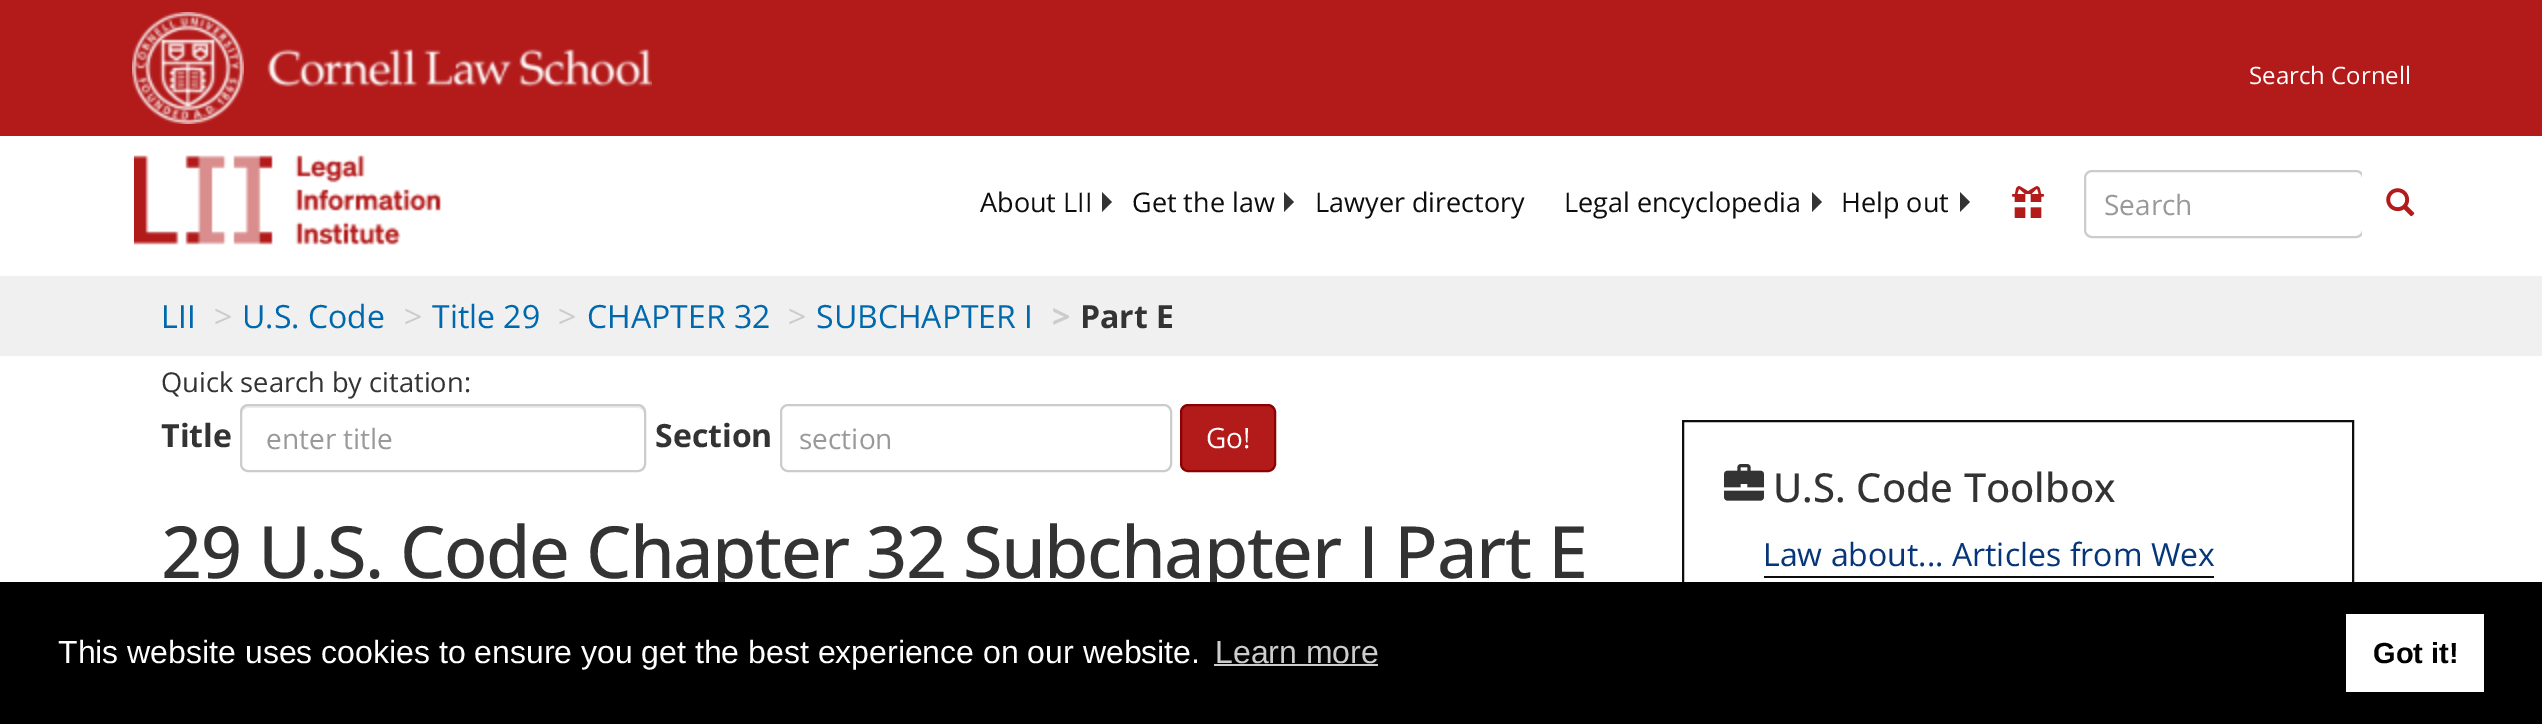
%!PS-Adobe-3.0
%%BoundingBox: 0 0 2542 724
%%LanguageLevel: 3
%%Pages: 1
%%EndComments
%%BeginProlog
/m { moveto } bind def
/l { lineto } bind def
/c { curveto } bind def
/h { closepath } bind def
/f { fill } bind def
/S { stroke } bind def
/q { gsave } bind def
/Q { grestore } bind def
/w { setlinewidth } bind def
/fn { [ exch dup neg 0 0 3 -1 roll 0 0 ] selectfont } def
/tx { moveto show } def
/bx { rectfill } def
/rr { 5 dict begin { /r /h /w /y /x } { exch def } forall
  x r add y moveto x w add y 2 copy h add r arct x w add y h add x 1 index r arct
  x y h add x y r arct x y 2 copy exch w add exch r arct closepath end } def
/im { 5 dict begin { /h /w /y /x /name } { exch def } forall
  gsave x y translate w h scale
  w h 8 [w 0 0 h 0 0] name (r) file false 3 colorimage grestore end } def
%%EndProlog
%%BeginSetup
<< /PageSize [2542 724] >> setpagedevice
%%EndSetup
%%Page: 1 1
0 724 translate 1 -1 scale
4 setmiterlimit
1 setgray
0 0 2542 724 bx
0.702 0.106 0.106 setrgbcolor
0 0 2542 136 bx
(image0.raw) 132 12 112 112 im
(image1.raw) 267 48 385 39 im
/OpenSans-Regular 24 fn
1 setgray
(Search Cornell) 2249 84 tx
(image2.raw) 134 155 307 90 im
/OpenSans-Regular 27 fn
0.055 0.051 0.055 setrgbcolor
(About LII) 980 212 tx
0.2 setgray
1102 212 m 1102 192 l 1112 202 l h f
0.055 0.051 0.055 setrgbcolor
(Get the law) 1132 212 tx
0.2 setgray
1284 212 m 1284 192 l 1294 202 l h f
0.055 0.051 0.055 setrgbcolor
(Lawyer directory) 1315 212 tx
(Legal encyclopedia) 1564 212 tx
0.2 setgray
1812 212 m 1812 192 l 1822 202 l h f
0.055 0.051 0.055 setrgbcolor
(Help out) 1841 212 tx
0.2 setgray
1960 212 m 1960 192 l 1970 202 l h f
(image3.raw) 2012 186 32 32 im
0.8 setgray
2 w
2085 171 278 66 7 rr S
/OpenSans-Regular 28 fn
0.6 setgray
(Search) 2104 215 tx
1 setgray
2362 172 m 2432 172 l 2436.5 172 2440 175.5 2440 180 c 2440 228 l 2440 232.5 2436.5 236 2432 236 c 2362 236 l h f
(image4.raw) 2386 188 29 29 im
0.941 setgray
0 276 2542 80 bx
/OpenSans-Regular 32 fn
0 0.408 0.675 setrgbcolor
(LII) 161 328 tx
0.8 setgray
(>) 214 328 tx
0 0.408 0.675 setrgbcolor
(U.S. Code) 242 328 tx
0.8 setgray
(>) 404 328 tx
0 0.408 0.675 setrgbcolor
(Title 29) 432 328 tx
0.8 setgray
(>) 558 328 tx
0 0.408 0.675 setrgbcolor
(CHAPTER 32) 587 328 tx
0.8 setgray
(>) 788 328 tx
0 0.408 0.675 setrgbcolor
(SUBCHAPTER I) 816 328 tx
/OpenSans-Bold 32 fn
0.8 setgray
(>) 1052 328 tx
0.2 setgray
(Part E) 1080 328 tx
/OpenSans-Regular 27.25 fn
(Quick search by citation:) 161 392 tx
/OpenSans-Bold 32 fn
(Title) 161 447 tx
0.925 setgray
248 408 m 638 408 l 641 408 644 411 644 414 c 644 410 643 406 638 406 c 248 406 l 243 406 242 410 242 414 c 242 411 245 408 248 408 c h f
0.8 setgray
241 405 404 66 7 rr S
/OpenSans-Regular 28 fn
0.6 setgray
(enter title) 266 449 tx
/OpenSans-Bold 32 fn
0.2 setgray
(Section) 655 447 tx
0.8 setgray
781 405 390 66 7 rr S
/OpenSans-Regular 28 fn
0.6 setgray
(section) 799 449 tx
0.702 0.106 0.106 setrgbcolor
1181 405 94 66 7 rr q f Q
0.545 0 0 setrgbcolor
S
1 setgray
(Go!) 1206 448 tx
/OpenSans-Medium 72 fn
0.2 setgray
161 578 m -1.5 0 (29 U.S. Code Chapter 32 Subchapter I Part E) ashow
0.055 0.051 0.055 setrgbcolor
1683 421 670 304 rectstroke
(image5.raw) 1724 464 40 37 im
/OpenSans-Medium 40 fn
0.2 setgray
(U.S. Code Toolbox) 1773 502 tx
/OpenSans-Regular 32 fn
0.024 0.208 0.478 setrgbcolor
(Law about... Articles from Wex) 1763 566 tx
0.055 0.051 0.055 setrgbcolor
1764 576 450 2 bx
0 setgray
0 582 2542 142 bx
/LiberationSans-Regular 32 fn
1 setgray
(This website uses cookies to ensure you get the best experience on our website.) 58 663 tx
0.8 setgray
(Learn more) 1215 663 tx
1214 664 164 2 bx
1 setgray
2346 614 138 78 bx
/LiberationSans-Bold 29 fn
0 setgray
(Got it!) 2373 663 tx
showpage
%%EOF
